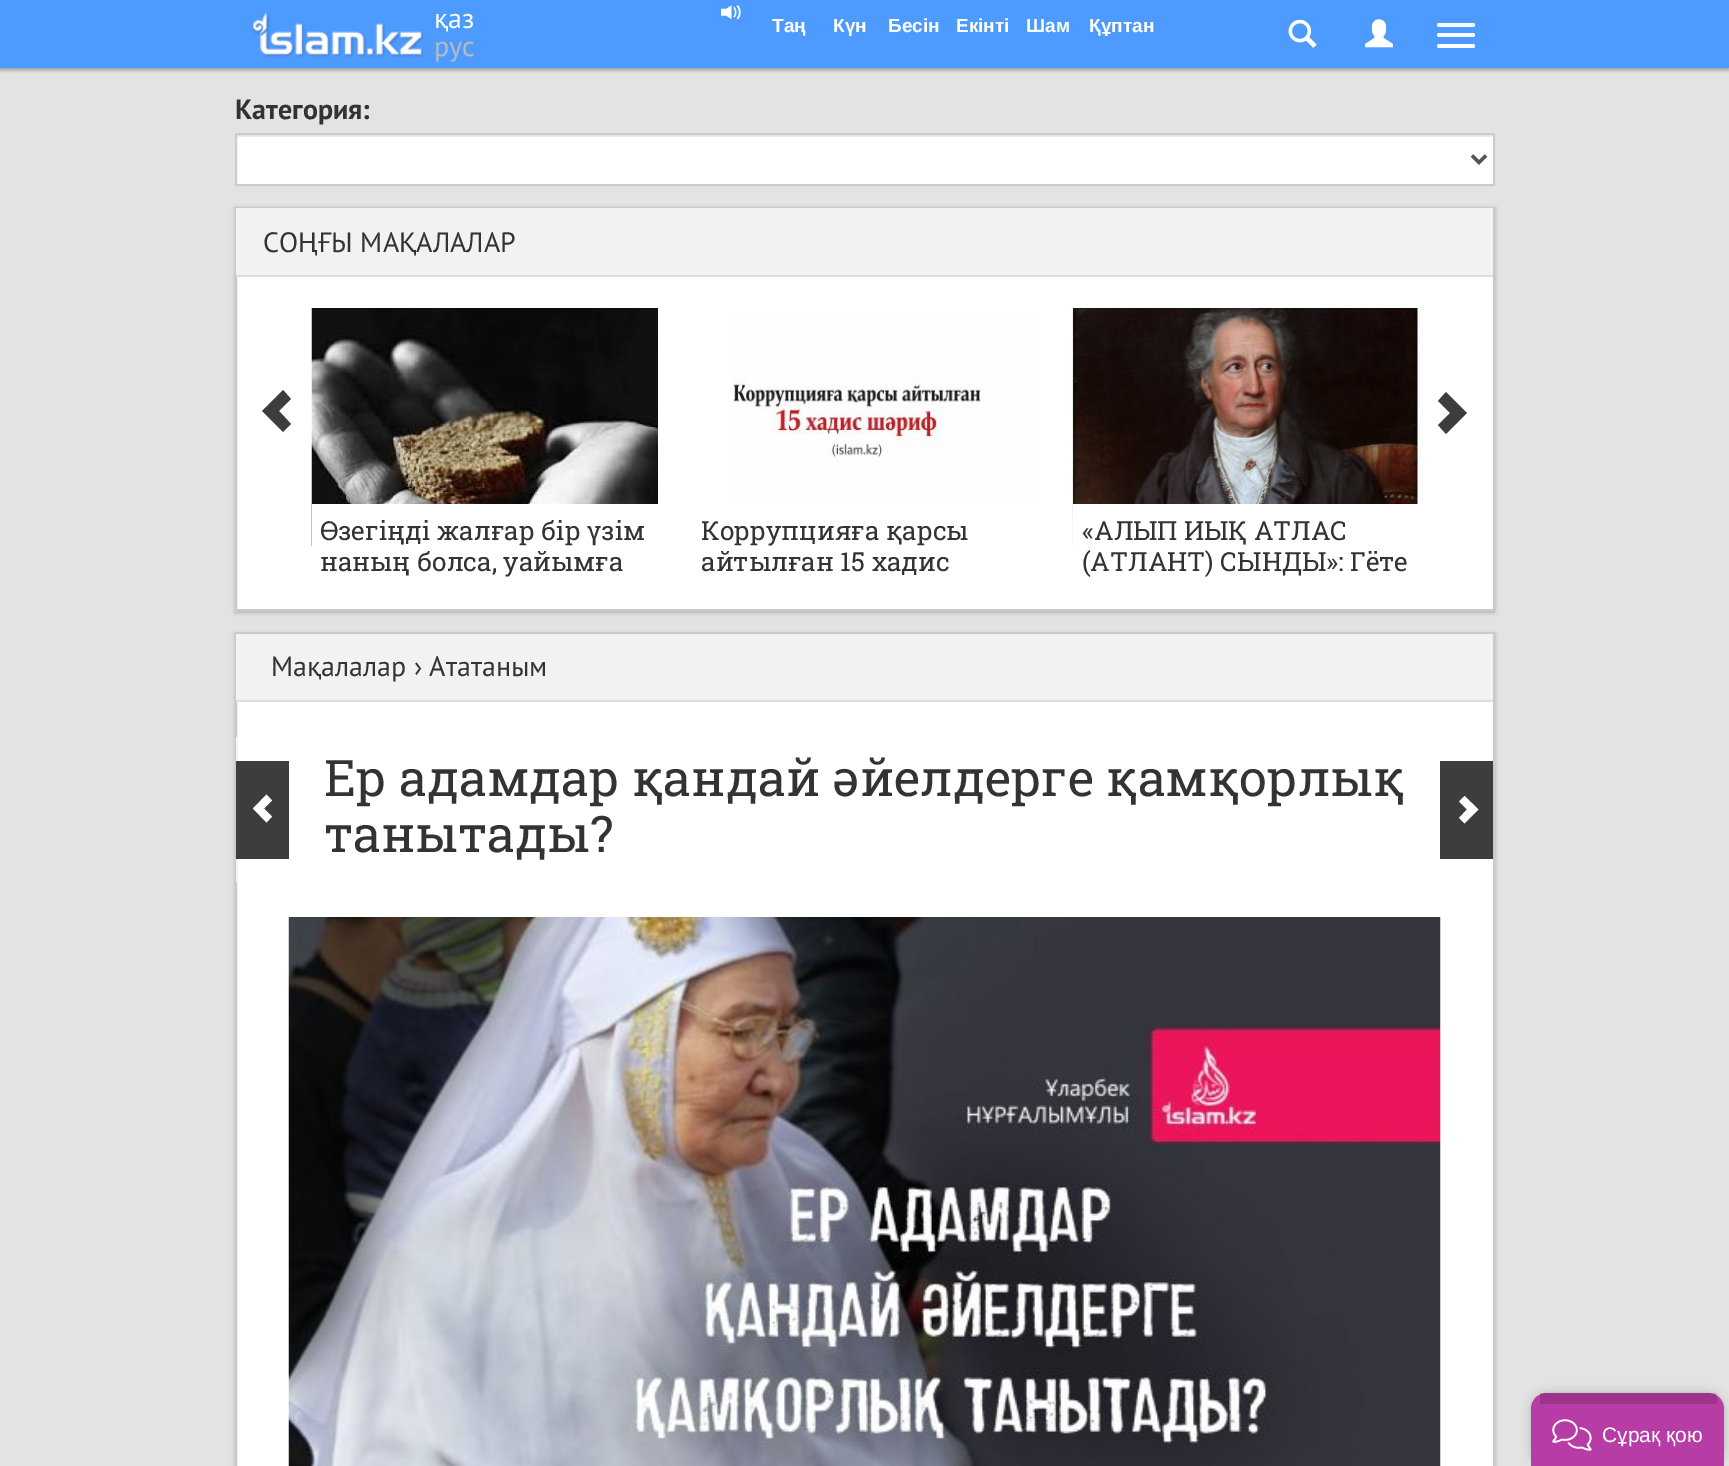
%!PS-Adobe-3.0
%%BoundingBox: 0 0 1729 1466
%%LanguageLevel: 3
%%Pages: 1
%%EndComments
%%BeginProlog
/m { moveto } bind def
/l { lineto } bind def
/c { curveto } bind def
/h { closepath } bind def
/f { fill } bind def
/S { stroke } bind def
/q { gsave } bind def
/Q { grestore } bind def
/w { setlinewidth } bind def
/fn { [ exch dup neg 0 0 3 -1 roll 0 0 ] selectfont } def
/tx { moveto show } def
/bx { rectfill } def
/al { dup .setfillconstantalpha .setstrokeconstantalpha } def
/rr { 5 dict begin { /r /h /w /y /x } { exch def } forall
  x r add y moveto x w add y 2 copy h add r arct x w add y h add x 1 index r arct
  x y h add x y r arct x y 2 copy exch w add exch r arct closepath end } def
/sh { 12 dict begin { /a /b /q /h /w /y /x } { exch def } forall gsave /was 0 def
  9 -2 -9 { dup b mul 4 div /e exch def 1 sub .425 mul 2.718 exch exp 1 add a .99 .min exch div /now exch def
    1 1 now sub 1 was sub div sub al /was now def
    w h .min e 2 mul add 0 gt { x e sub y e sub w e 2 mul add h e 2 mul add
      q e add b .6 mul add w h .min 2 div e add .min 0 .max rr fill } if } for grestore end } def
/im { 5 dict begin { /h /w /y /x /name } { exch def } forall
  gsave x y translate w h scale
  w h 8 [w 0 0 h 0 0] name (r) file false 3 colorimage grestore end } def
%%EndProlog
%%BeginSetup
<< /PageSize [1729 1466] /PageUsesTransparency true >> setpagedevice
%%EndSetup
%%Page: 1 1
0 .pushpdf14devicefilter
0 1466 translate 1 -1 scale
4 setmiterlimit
0.89 setgray
0 0 1729 1466 bx
0.6 setgray
0 2 1729 68 0 2 1 sh
0.306 0.608 1 setrgbcolor
0 0 1729 68 bx
(image0.raw) 252 12 172 46 im
/PTSans-Regular 28 fn
1 setgray
(қаз) 434 28 tx
0.733 setgray
(рус) 434 56 tx
(image1.raw) 721 5 20 15 im
/LiberationSans-Bold 19 fn
1 setgray
(Таң) 772 32 tx
(Күн) 833 32 tx
(Бесін) 888 32 tx
(Екінті) 956 32 tx
(Шам) 1026 32 tx
(Құптан) 1089 32 tx
(image2.raw) 1288 19 29 29 im
(image3.raw) 1365 19 28 29 im
1437 23 38 4 2 rr f
1437 33 38 4 2 rr f
1437 44 38 4 2 rr f
/PTSans-Bold 28 fn
0.2 setgray
(Категория:) 235 119 tx
1 setgray
237 137 1256 47 bx
0.925 setgray
236 135 1257 2 bx
0.8 setgray
2 w
236 134 1258 51 rectstroke
0.333 setgray
3.5 w
1472 155.5 m 1479 162.5 l 1486 155.5 l S
0.702 setgray
235 208 1260 405 0 2 1 sh
1 setgray
237 277 1256 332 bx
0.788 setgray
2 w
236 208 1258 402 rectstroke
0.949 setgray
236 208 1257 67 bx
0.867 setgray
236 275 1257 2 bx
/PTSans-Regular 28 fn
0.2 setgray
(СОҢҒЫ МАҚАЛАЛАР) 263 252 tx
0.239 setgray
262 411 m 283 432 l 291 424 l 279 411 l 291 399 l 283 390 l h f
1438 425 m 1450 413 l 1438 401 l 1446 392 l 1467 413 l 1446 434 l h f
(image4.raw) 311 308 347 238 im
1 setgray
312 504 346 42 bx
/RobotoSlab-Regular 26.25 fn
0.2 setgray
(Өзегіңді жалғар бір үзім) 320 540 tx
(наның болса, уайымға) 320 571 tx
q
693 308 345 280 rectclip
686 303 m 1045 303 l 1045 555 l 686 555 l h 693 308 m 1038 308 l 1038 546 l 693 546 l h eoclip newpath
0.702 setgray
693 310 345 238 0 2 1 sh
Q
1 setgray
693 308 345 2 1 rr f
(image5.raw) 732 312 306 192 im
693 504 345 48 bx
0.2 setgray
(Коррупцияға қарсы) 701 540 tx
(айтылған 15 хадис) 701 571 tx
(image6.raw) 1072 308 346 238 im
1 setgray
1073 504 345 42 bx
0.2 setgray
(«АЛЫП ИЫҚ АТЛАС) 1082 540 tx
(\(АТЛАНТ\) СЫНДЫ»: Гёте) 1082 571 tx
0.702 setgray
235 634 1260 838 0 2 1 sh
1 setgray
237 702 1256 764 bx
0.788 setgray
236 633 1258 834 rectstroke
0.949 setgray
236 634 1257 66 bx
0.867 setgray
236 700 1257 2 bx
/PTSans-Regular 28 fn
0.2 setgray
(Мақалалар › Ататаным) 271 676 tx
0.9 al
1 setgray
236 737 1 145 bx
1 al
0.239 setgray
236 761 53 98 bx
1 setgray
253 808.5 m 266.5 822.5 l 272 816.5 l 264 808.5 l 272 800.5 l 266.5 794.5 l h f
/RobotoSlab-Regular 50.4 fn
0.2 setgray
(Ер адамдар қандай әйелдерге қамқорлық) 324 796 tx
(танытады?) 324 852 tx
0.239 setgray
1440 761 53 98 bx
1 setgray
1459 818 m 1467 809.5 l 1459 801.5 l 1464.5 796 l 1478.5 809.5 l 1464.5 823.5 l h f
(image7.raw) 288 917 1153 549 im
0 setgray
1531 1393 193 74 16 4.5 0.2 sh
0.722 0.235 0.647 setrgbcolor
1547 1393 m 1708 1393 l 1717 1393 1724 1400 1724 1409 c 1724 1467 l 1531 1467 l 1531 1409 l 1531 1400 1538 1393 1547 1393 c h f
0.15 al
0 setgray
1540 1393 177 11 bx
1 al
(image8.raw) 1552 1419 40 32 im
/LiberationSans-Regular 21 fn
1 setgray
(Cұрақ қою) 1602 1442 tx
.poppdf14devicefilter showpage
%%EOF
